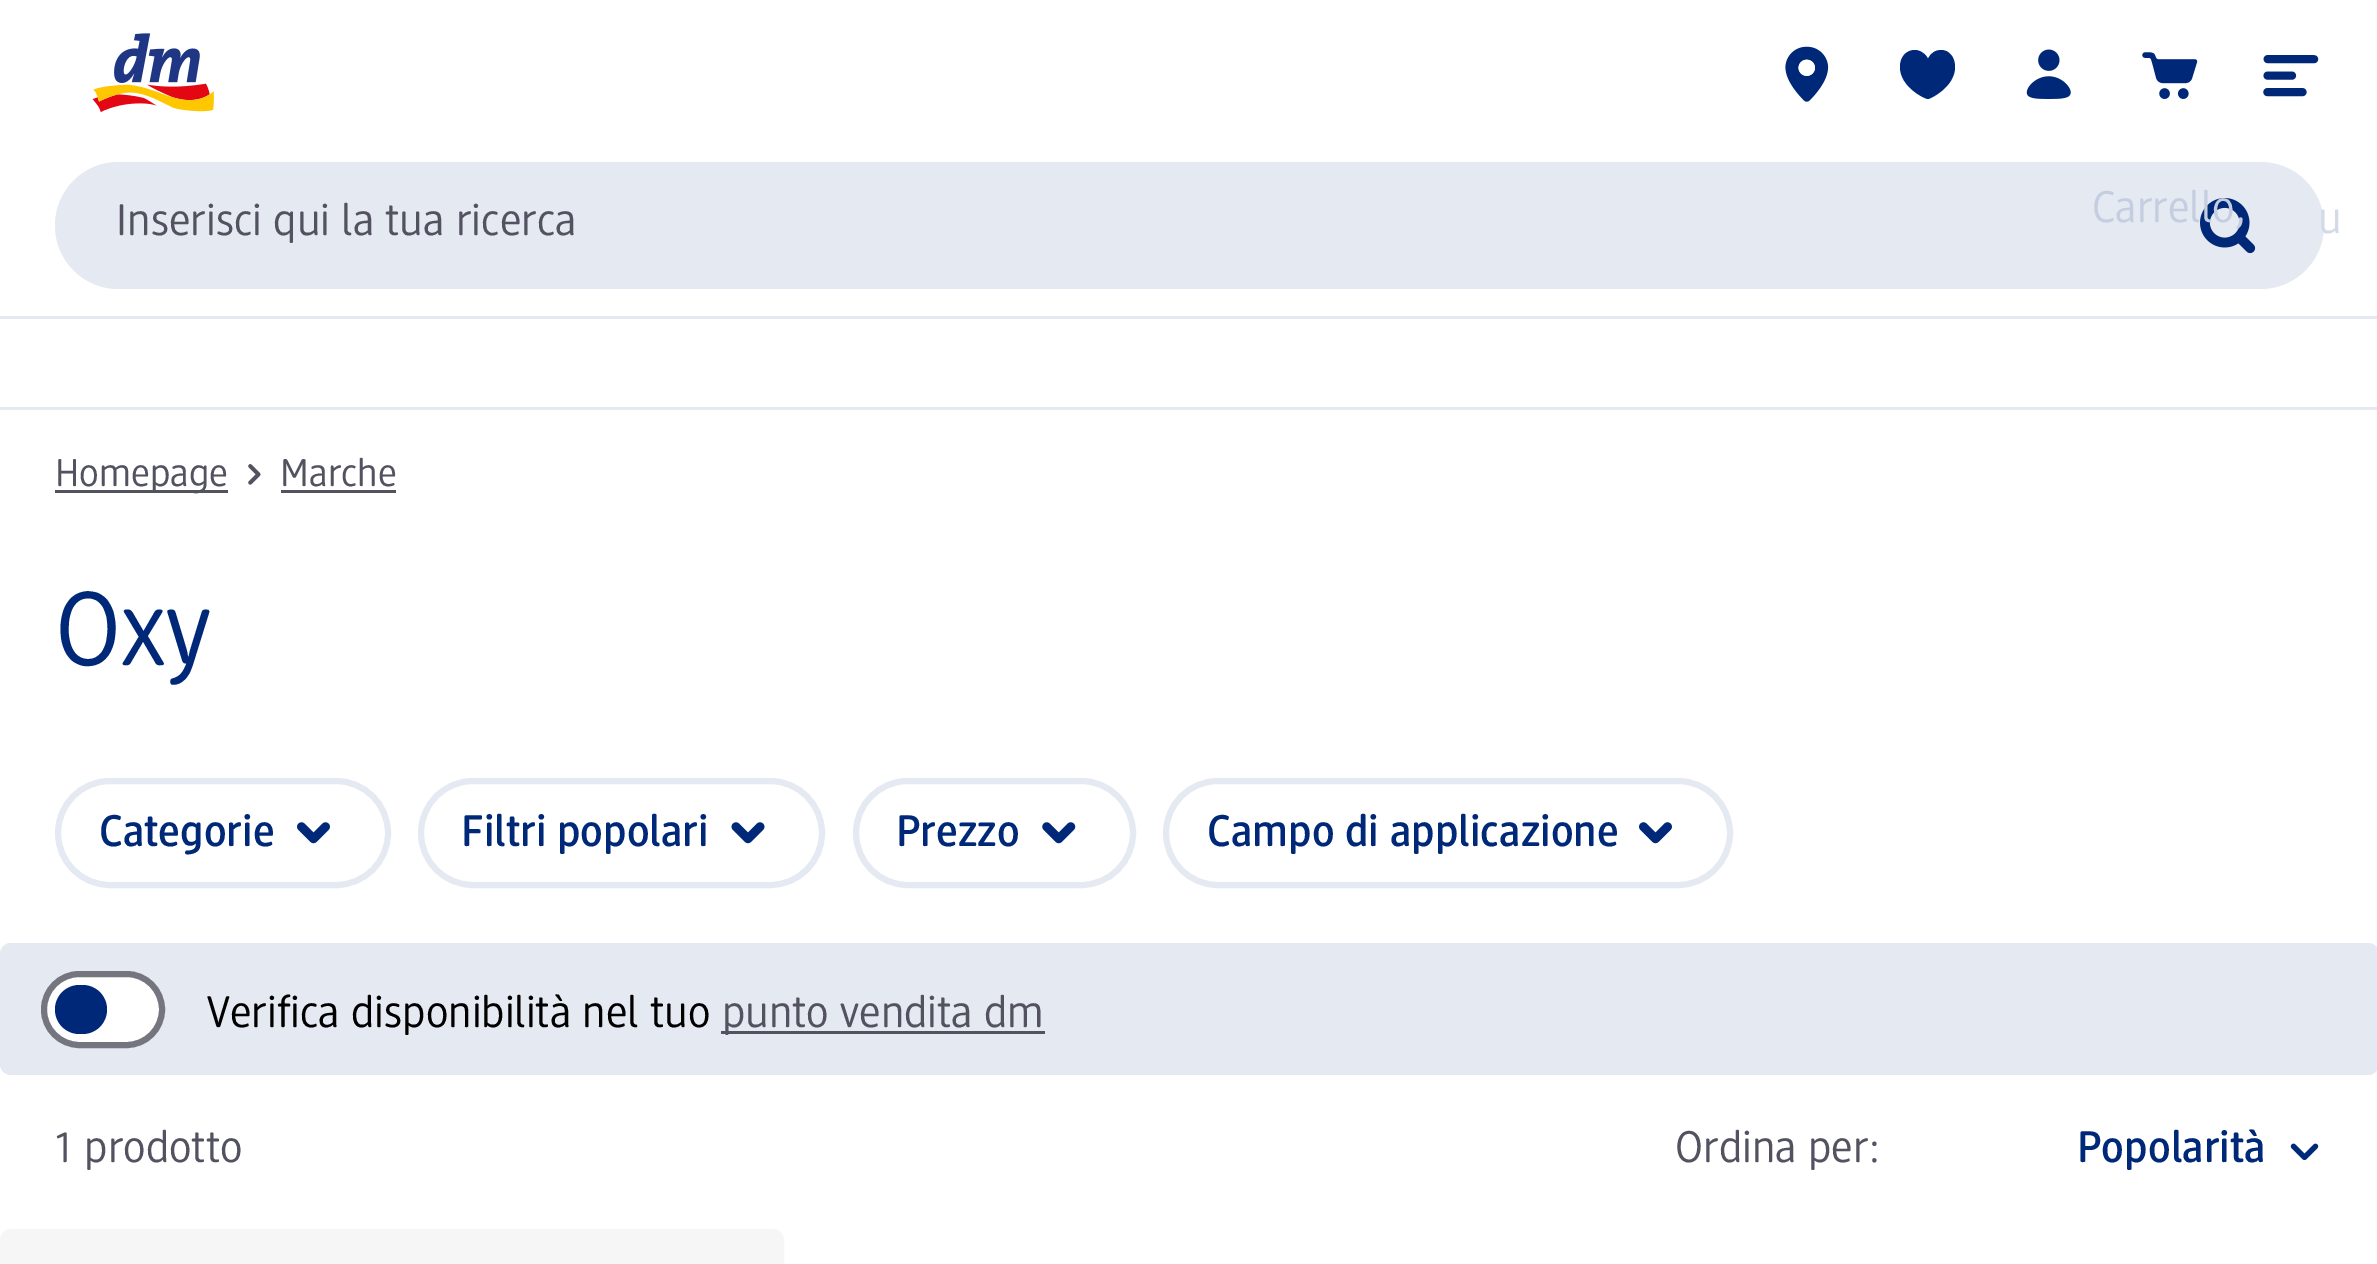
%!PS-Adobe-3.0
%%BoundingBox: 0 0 2377 1264
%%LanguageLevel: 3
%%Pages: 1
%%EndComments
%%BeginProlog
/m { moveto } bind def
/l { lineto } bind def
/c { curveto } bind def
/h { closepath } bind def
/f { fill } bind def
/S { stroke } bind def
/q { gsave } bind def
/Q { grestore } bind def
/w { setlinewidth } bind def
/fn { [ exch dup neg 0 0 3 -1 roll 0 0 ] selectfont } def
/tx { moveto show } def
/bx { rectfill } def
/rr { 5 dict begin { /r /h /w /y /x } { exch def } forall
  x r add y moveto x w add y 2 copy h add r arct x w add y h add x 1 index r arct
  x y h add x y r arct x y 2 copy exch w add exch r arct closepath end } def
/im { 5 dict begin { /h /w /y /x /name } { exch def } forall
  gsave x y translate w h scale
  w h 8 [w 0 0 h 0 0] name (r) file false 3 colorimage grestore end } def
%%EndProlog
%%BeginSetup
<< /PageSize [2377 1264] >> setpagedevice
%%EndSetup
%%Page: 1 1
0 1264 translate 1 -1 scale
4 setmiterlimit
1 setgray
0 0 2377 1264 bx
0.898 0.914 0.945 setrgbcolor
0 316 2377 3 bx
(image0.raw) 92 33 122 79 im
55 162 2269 127 63.5 rr f
/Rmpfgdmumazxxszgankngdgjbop-Regular 44 fn
0.322 0.322 0.376 setrgbcolor
(Inserisci qui la tua ricerca) 116 235 tx
(image1.raw) 2200 198 56 56 im
(image2.raw) 1785 46 44 56 im
0 0.157 0.471 setrgbcolor
1941 50 m 1935 50 1930 54 1928 59 c 1926 54 1920 50 1915 50 c 1906 50 1900 57 1900 67 c 1900 87 1925 99 1928 99 c 1930 99 1955 87 1955 67 c 1955 57 1949 50 1941 50 c f
(image3.raw) 2026 49 45 50 im
(image4.raw) 2142 52 56 47 im
0.773 0.808 0.878 setrgbcolor
(Carrello,) 2092 222 tx
(image5.raw) 2263 55 56 42 im
0.827 0.855 0.906 setrgbcolor
(u) 2318 233 tx
0.898 0.914 0.945 setrgbcolor
0 407 2377 3 bx
0.322 0.322 0.376 setrgbcolor
55 490 173 3 bx
/Rmpfgdmumazxxszgankngdgjbop-Regular 38.5 fn
(Homepage) 55 486 tx
(image6.raw) 248 464 13 21 im
(Marche) 280 486 tx
281 490 115 3 bx
/Rmpfgdmumazxxszgankngdgjbop-Regular 104 fn
0 0.157 0.471 setrgbcolor
(Oxy) 55 665 tx
0.898 0.914 0.945 setrgbcolor
6 w
58 781 330 104 52 rr S
/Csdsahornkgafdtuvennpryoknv-Medium 44 fn
0 0.157 0.471 setrgbcolor
(Categorie) 99 846 tx
(image7.raw) 297 822 33 22 im
0.898 0.914 0.945 setrgbcolor
421 781 401 104 52 rr S
0 0.157 0.471 setrgbcolor
(Filtri popolari) 461 846 tx
(image8.raw) 731 822 34 22 im
0.898 0.914 0.945 setrgbcolor
856 781 277 104 52 rr S
0 0.157 0.471 setrgbcolor
(Prezzo) 896 846 tx
(image9.raw) 1042 822 34 22 im
0.898 0.914 0.945 setrgbcolor
1166 781 564 104 52 rr S
0 0.157 0.471 setrgbcolor
(Campo di applicazione) 1207 846 tx
(image7.raw) 1639 822 33 22 im
0.898 0.914 0.945 setrgbcolor
0 943 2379 132 11 rr f
1 setgray
44 974 118 71 35.5 rr q f Q
0.459 0.459 0.502 setrgbcolor
S
0 0.157 0.471 setrgbcolor
55 985 52 49 24.5 rr f
/Rmpfgdmumazxxszgankngdgjbop-Regular 44 fn
0 setgray
(Verifica disponibilità nel tuo) 207 1027 tx
0.322 0.322 0.376 setrgbcolor
721 1031 324 3 bx
(punto vendita dm) 722 1027 tx
(1 prodotto) 55 1162 tx
(Ordina per:) 1675 1162 tx
(image10.raw) 2290 1143 29 18 im
/Csdsahornkgafdtuvennpryoknv-Medium 44 fn
0 0.157 0.471 setrgbcolor
(Popolarità) 2077 1162 tx
0.965 0.965 0.969 setrgbcolor
3 w
1.5 1230.5 781 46 9.5 rr S
11 1232 m 773 1232 l 777.5 1232 781 1235.5 781 1240 c 781 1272 l 3 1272 l 3 1240 l 3 1235.5 6.5 1232 11 1232 c h f
showpage
%%EOF
